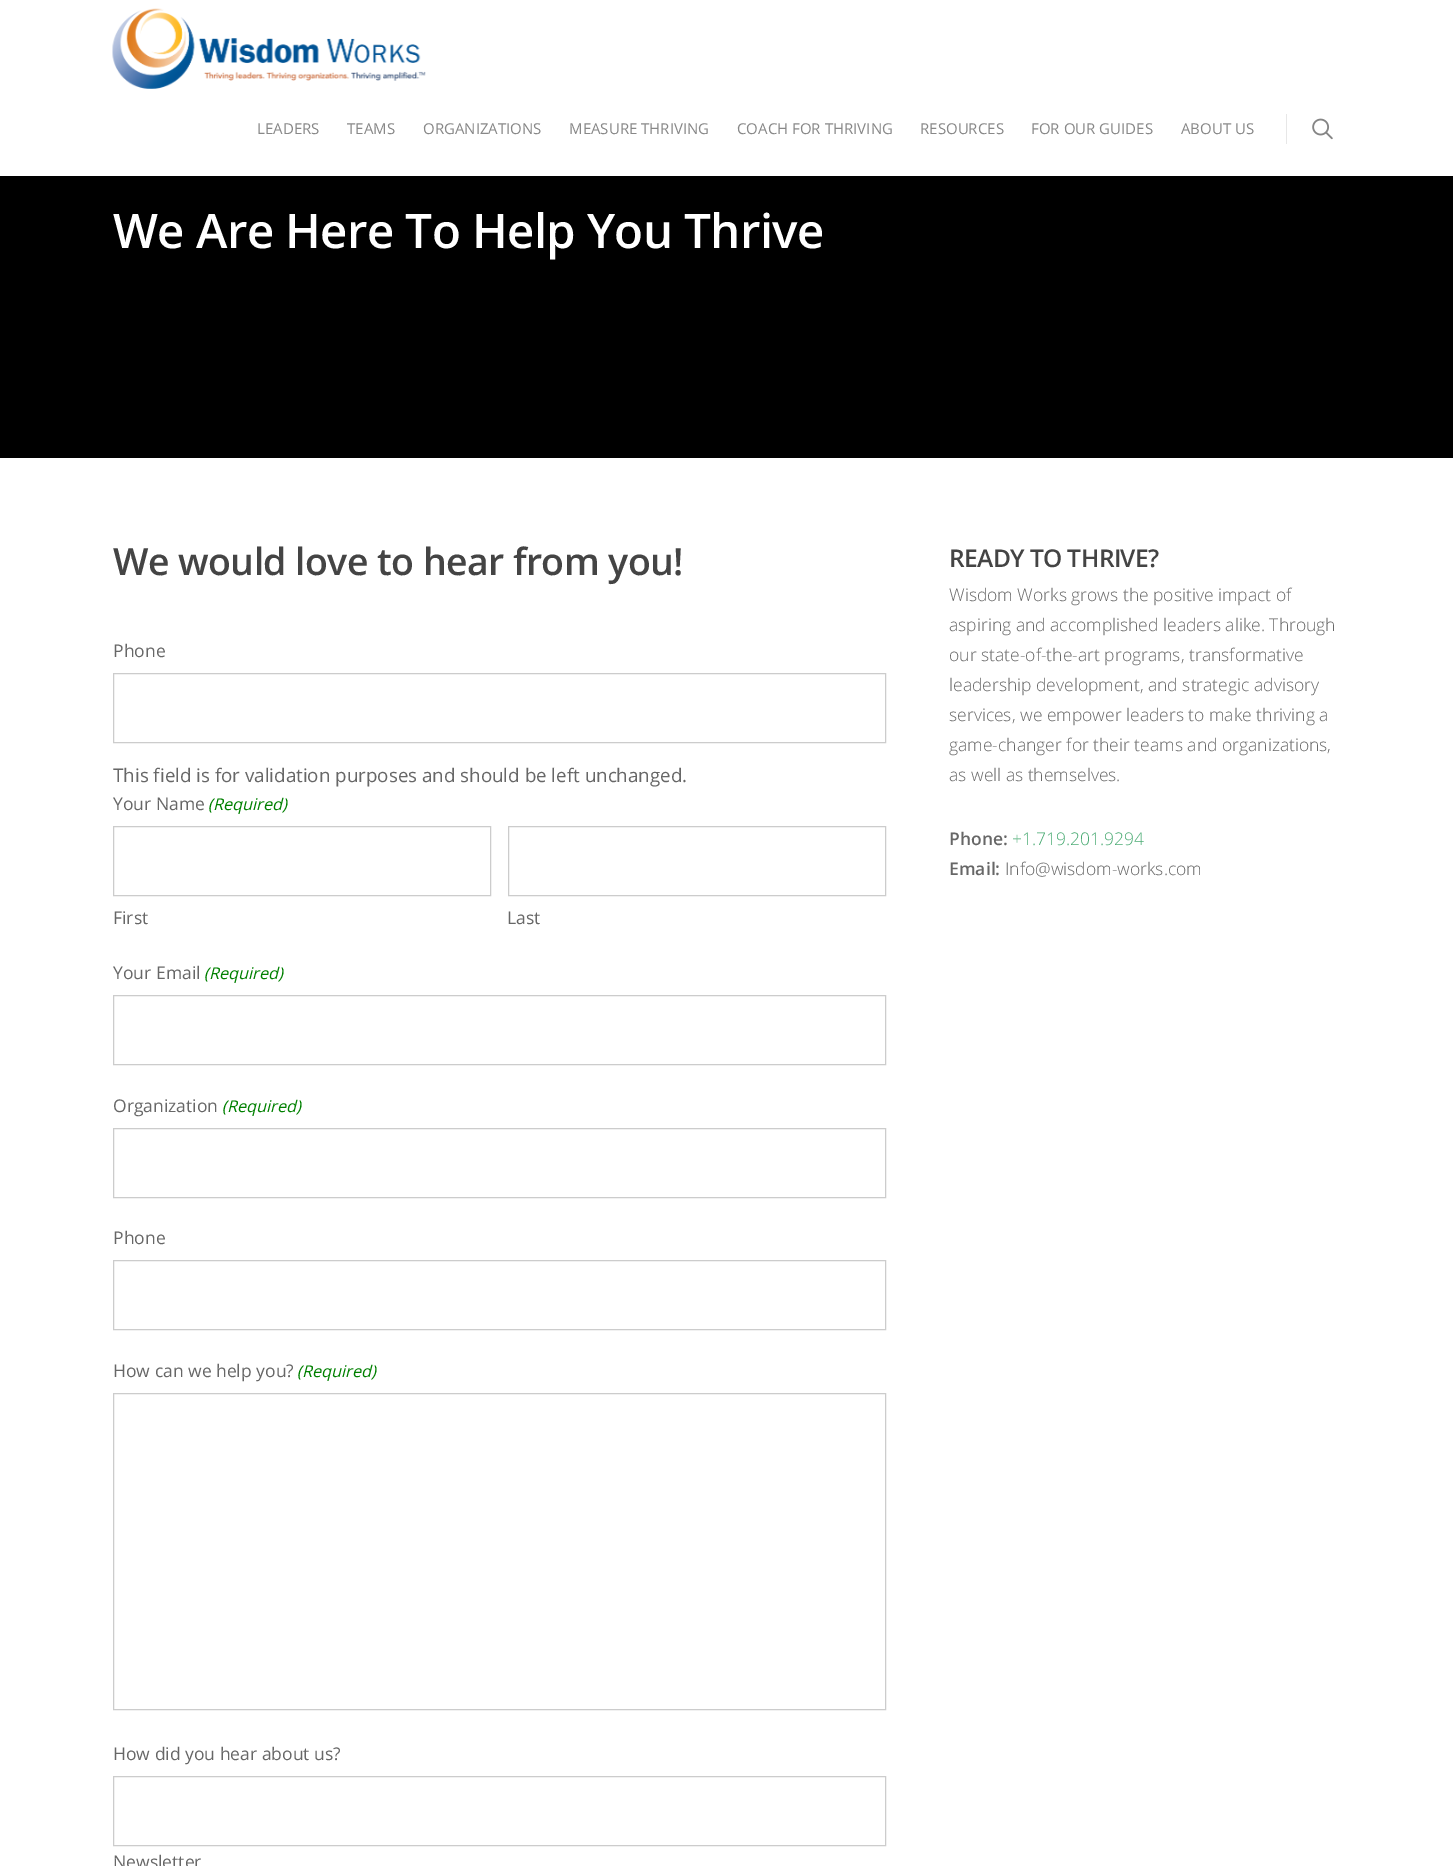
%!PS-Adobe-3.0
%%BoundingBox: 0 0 1453 1866
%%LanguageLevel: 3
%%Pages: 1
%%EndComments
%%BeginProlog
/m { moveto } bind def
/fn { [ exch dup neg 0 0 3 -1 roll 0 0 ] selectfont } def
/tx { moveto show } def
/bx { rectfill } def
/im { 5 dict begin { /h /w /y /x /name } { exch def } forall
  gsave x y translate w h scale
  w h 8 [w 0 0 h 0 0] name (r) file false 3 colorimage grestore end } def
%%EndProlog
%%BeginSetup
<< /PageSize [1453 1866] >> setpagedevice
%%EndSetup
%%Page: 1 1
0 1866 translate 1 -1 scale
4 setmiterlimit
0 setgray
0 0 1453 1866 bx
1 setgray
0 0 1453 176 bx
(image0.raw) 112 8 314 81 im
/OpenSans-Regular 15 fn
0.533 setgray
(LEADERS) 257 134 tx
(TEAMS) 347 134 tx
(ORGANIZATIONS) 423 134 tx
(MEASURE THRIVING) 569 134 tx
(COACH FOR THRIVING) 737 134 tx
(RESOURCES) 920 134 tx
(FOR OUR GUIDES) 1031 134 tx
(ABOUT US) 1181 134 tx
0.906 setgray
1286 114 1 30 bx
(image1.raw) 1312 118 21 22 im
/OpenSans-SemiBold 47.5 fn
1 setgray
113 248 m -0.6 0 (We Are Here To Help You Thrive) ashow
0 458 1453 1408 bx
/OpenSans-SemiBold 37.5 fn
0.267 setgray
113 575 m -0.6 0 (We would love to hear from you!) ashow
/OpenSans-Regular 17.5 fn
0.404 setgray
(Phone) 113 657 tx
0.8 setgray
113.5 673.5 772 69 rectstroke
/OpenSans-Regular 18.75 fn
0.404 setgray
(This field is for validation purposes and should be left unchanged.) 113 782 tx
/OpenSans-Regular 17.5 fn
(Your Name) 113 810 tx
/OpenSans-Italic 16.25 fn
0 0.502 0 setrgbcolor
(\(Required\)) 208 810 tx
0.8 setgray
113.5 826.5 377 69 rectstroke
/OpenSans-Regular 17.5 fn
0.404 setgray
(First) 113 924 tx
0.8 setgray
508.5 826.5 377 69 rectstroke
0.404 setgray
(Last) 507 924 tx
(Your Email) 113 979 tx
/OpenSans-Italic 16.25 fn
0 0.502 0 setrgbcolor
(\(Required\)) 204 979 tx
0.8 setgray
113.5 995.5 772 69 rectstroke
/OpenSans-Regular 17.5 fn
0.404 setgray
(Organization) 113 1112 tx
/OpenSans-Italic 16.25 fn
0 0.502 0 setrgbcolor
(\(Required\)) 222 1112 tx
0.8 setgray
113.5 1128.5 772 69 rectstroke
/OpenSans-Regular 17.5 fn
0.404 setgray
(Phone) 113 1244 tx
0.8 setgray
113.5 1260.5 772 69 rectstroke
0.404 setgray
(How can we help you?) 113 1377 tx
/OpenSans-Italic 16.25 fn
0 0.502 0 setrgbcolor
(\(Required\)) 297 1377 tx
0.8 setgray
113.5 1393.5 772 316 rectstroke
/OpenSans-Regular 17.5 fn
0.404 setgray
(How did you hear about us?) 113 1760 tx
0.8 setgray
113.5 1776.5 772 69 rectstroke
0.404 setgray
(Newsletter) 113 1868 tx
/OpenSans-SemiBold 24.5 fn
0.267 setgray
949 567 m -0.6 0 (READY TO THRIVE?) ashow
/OpenSans-Light 17.5 fn
0.404 setgray
(Wisdom Works grows the positive impact of) 949 601 tx
(aspiring and accomplished leaders alike. Through) 949 631 tx
(our state-of-the-art programs, transformative) 949 661 tx
(leadership development, and strategic advisory) 949 691 tx
(services, we empower leaders to make thriving a) 949 721 tx
(game-changer for their teams and organizations,) 949 751 tx
(as well as themselves.) 949 781 tx
/OpenSans-SemiBold 17.5 fn
(Phone:) 949 845 tx
/OpenSans-Light 17.5 fn
0.29 0.671 0.451 setrgbcolor
(+1.719.201.9294) 1012 845 tx
/OpenSans-SemiBold 17.5 fn
0.404 setgray
(Email:) 949 875 tx
/OpenSans-Light 17.5 fn
(Info@wisdom-works.com) 1005 875 tx
showpage
%%EOF
